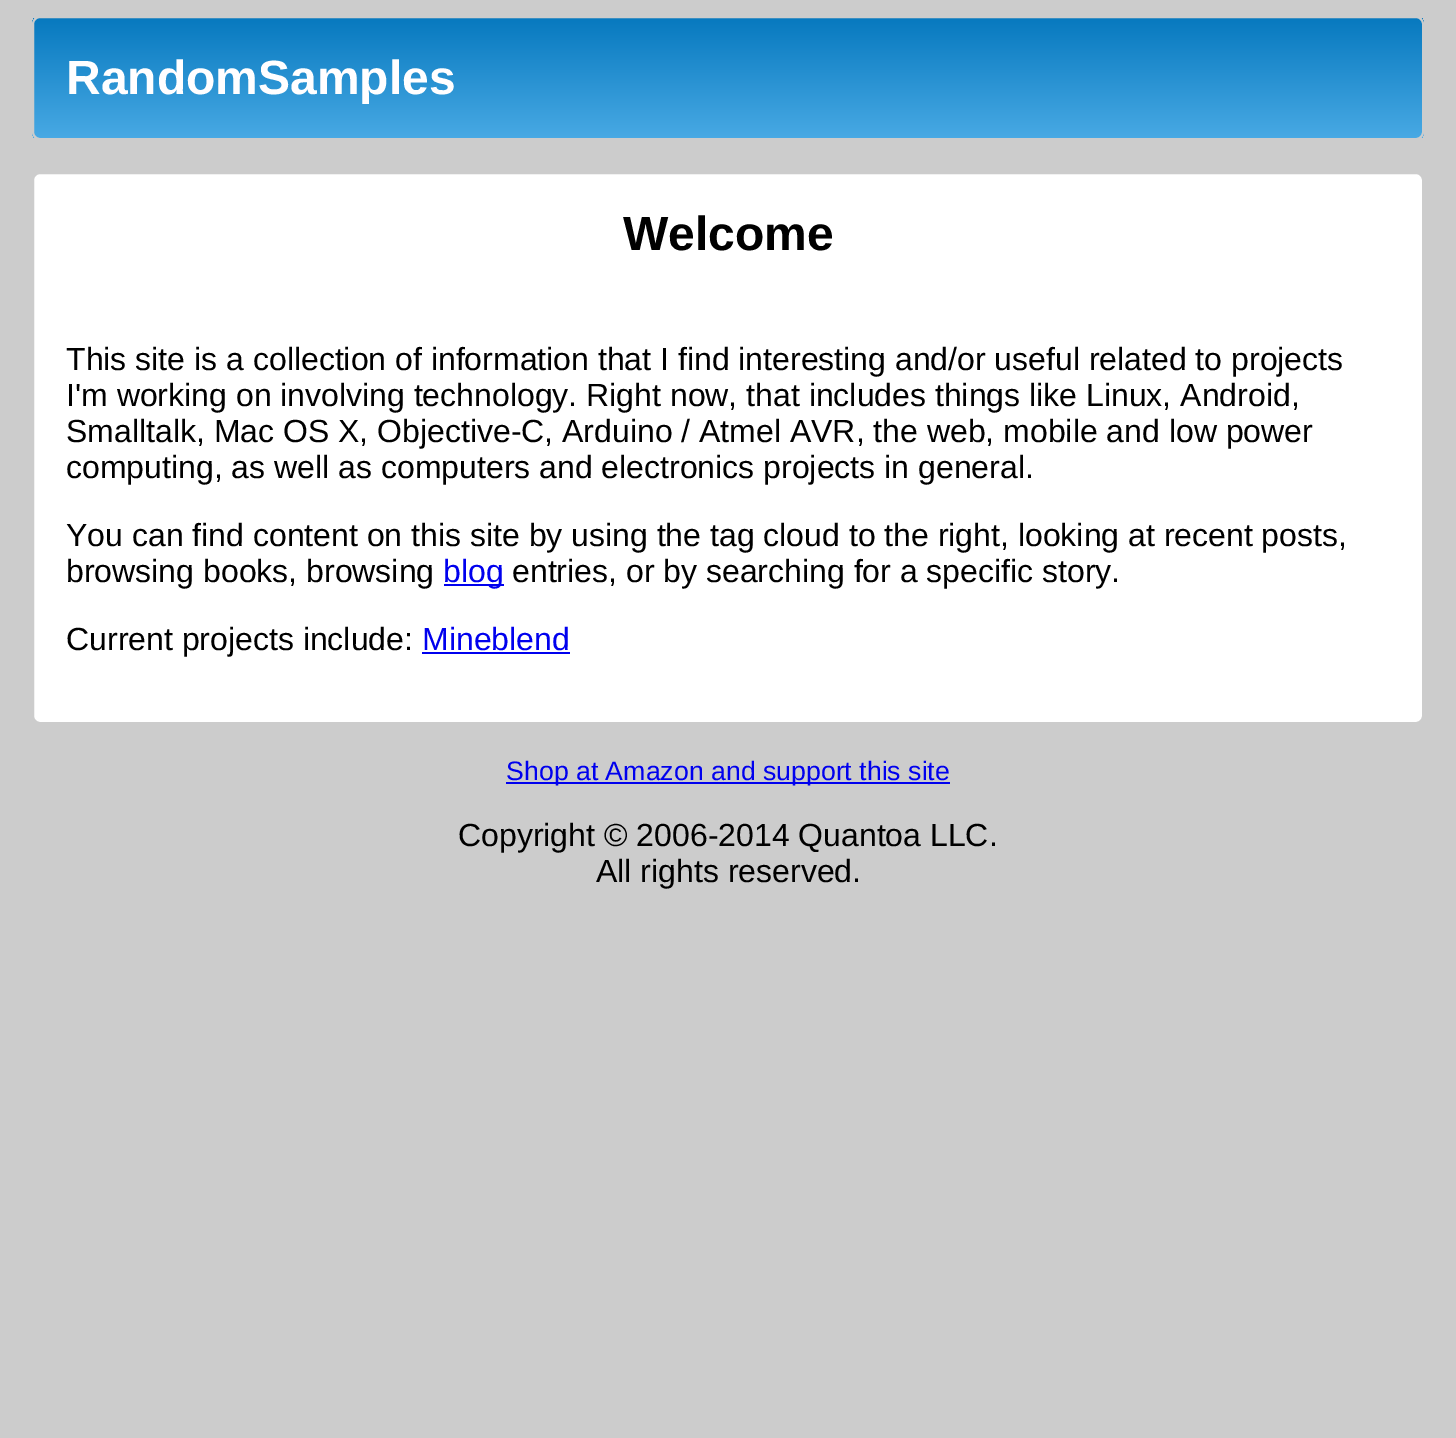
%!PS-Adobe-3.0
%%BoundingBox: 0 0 1456 1438
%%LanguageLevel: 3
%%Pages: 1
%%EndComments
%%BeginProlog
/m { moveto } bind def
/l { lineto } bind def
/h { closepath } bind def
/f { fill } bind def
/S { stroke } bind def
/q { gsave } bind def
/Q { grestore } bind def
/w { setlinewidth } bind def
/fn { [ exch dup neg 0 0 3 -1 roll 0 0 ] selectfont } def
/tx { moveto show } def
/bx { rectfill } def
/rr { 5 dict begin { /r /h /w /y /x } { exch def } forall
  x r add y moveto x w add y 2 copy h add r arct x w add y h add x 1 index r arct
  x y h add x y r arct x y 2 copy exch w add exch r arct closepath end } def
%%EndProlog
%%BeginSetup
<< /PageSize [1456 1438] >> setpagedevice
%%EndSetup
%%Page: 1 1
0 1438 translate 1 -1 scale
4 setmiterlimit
0.8 setgray
0 0 1456 1438 bx
q
32 16 1392 124 8 rr clip newpath
q 32 18 m 1424 18 l 1424 138 l 32 138 l h clip newpath
<< /ShadingType 2 /ColorSpace /DeviceRGB /Coords [728 18 728 138] /Extend [true true] /Function << /FunctionType 2 /Domain [0 1] /C0 [0.027 0.475 0.749] /C1 [0.282 0.663 0.894] /N 1 >> >> shfill Q
Q
2 w
33 17 1390 122 7 rr S
/LiberationSans-Bold 48 fn
1 0.996 1 setrgbcolor
(RandomSamples) 66 94 tx
1 setgray
33 173 1390 550 7 rr q f Q
0.8 setgray
S
0 setgray
(Welcome) 623 250 tx
/LiberationSans-Regular 32 fn
(This site is a collection of information that I find interesting and/or useful related to projects) 66 370 tx
(I'm working on involving technology. Right now, that includes things like Linux, Android,) 66 406 tx
(Smalltalk, Mac OS X, Objective-C, Arduino / Atmel AVR, the web, mobile and low power) 66 442 tx
(computing, as well as computers and electronics projects in general.) 66 478 tx
(You can find content on this site by using the tag cloud to the right, looking at recent posts,) 66 546 tx
(browsing books, browsing) 66 582 tx
0 0 0.933 setrgbcolor
444 584 60 2 bx
(blog) 443 582 tx
0 setgray
(entries, or by searching for a specific story.) 512 582 tx
(Current projects include:) 66 650 tx
0 0 0.933 setrgbcolor
(Mineblend) 422 650 tx
422 652 148 2 bx
506 782 444 2 bx
/LiberationSans-Regular 26.7 fn
(Shop at Amazon and support this site) 506 780 tx
/LiberationSans-Regular 32 fn
0 setgray
(Copyright © 2006-2014 Quantoa LLC.) 458 846 tx
(All rights reserved.) 596 882 tx
showpage
%%EOF
